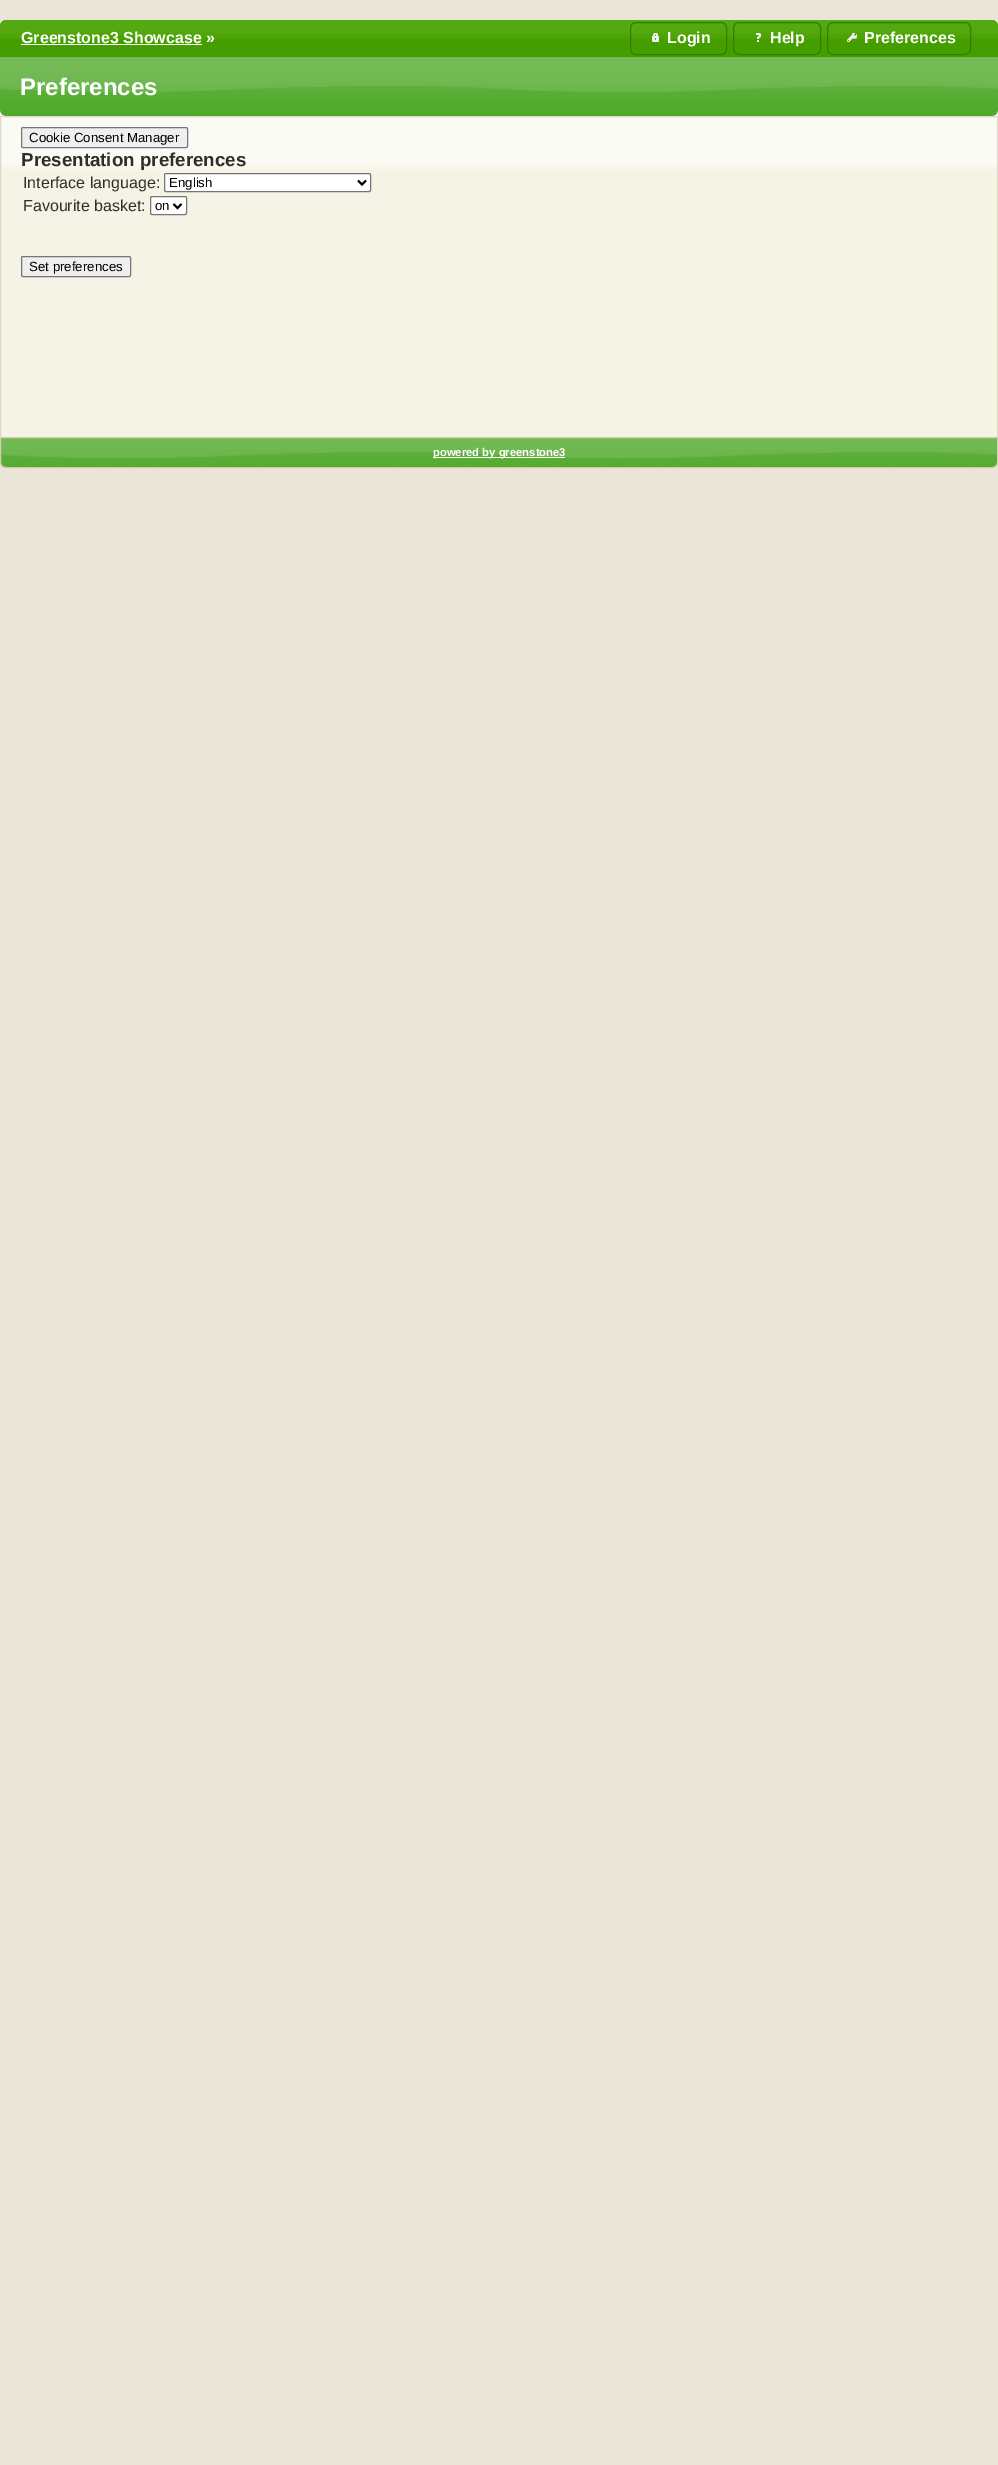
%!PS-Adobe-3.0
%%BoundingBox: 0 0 998 2465
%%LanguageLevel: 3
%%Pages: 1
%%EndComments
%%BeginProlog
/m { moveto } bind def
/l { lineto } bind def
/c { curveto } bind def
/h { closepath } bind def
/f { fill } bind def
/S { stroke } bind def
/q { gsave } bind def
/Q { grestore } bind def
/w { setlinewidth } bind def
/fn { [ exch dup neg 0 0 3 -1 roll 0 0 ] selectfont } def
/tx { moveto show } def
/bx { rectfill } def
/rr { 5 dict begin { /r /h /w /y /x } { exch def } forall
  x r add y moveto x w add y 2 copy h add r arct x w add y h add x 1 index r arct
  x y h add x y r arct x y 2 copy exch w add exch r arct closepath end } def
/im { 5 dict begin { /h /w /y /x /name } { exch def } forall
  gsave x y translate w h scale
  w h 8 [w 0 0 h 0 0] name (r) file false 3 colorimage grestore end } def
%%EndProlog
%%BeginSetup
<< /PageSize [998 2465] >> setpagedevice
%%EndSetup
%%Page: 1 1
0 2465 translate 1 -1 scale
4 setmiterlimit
0.918 0.894 0.851 setrgbcolor
0 0 998 2465 bx
0.271 0.62 0 setrgbcolor
6 20 m 992 20 l 995.5 20 998 22.5 998 26 c 998 57 l 0 57 l 0 26 l 0 22.5 2.5 20 6 20 c h f
(image0.raw) 0 20 998 19 im
/LiberationSans-Bold 16 fn
1 setgray
(Greenstone3 Showcase ») 21 43 tx
21 44 181 1 bx
0.271 0.62 0 setrgbcolor
630 22 97 33 6 rr f
(image1.raw) 630 22 97 17 im
0.196 0.494 0.016 setrgbcolor
630.5 22.5 96 32 5.5 rr S
(image2.raw) 652 33 7 9 im
1 setgray
(Login) 667 43 tx
0.271 0.62 0 setrgbcolor
733 22 88 33 6 rr f
(image3.raw) 733 22 88 17 im
0.196 0.494 0.016 setrgbcolor
733.5 22.5 87 32 5.5 rr S
(image4.raw) 756 33 5 9 im
1 setgray
(Help) 770 43 tx
0.271 0.62 0 setrgbcolor
827 22 144 33 6 rr f
(image5.raw) 827 22 144 17 im
0.196 0.494 0.016 setrgbcolor
827.5 22.5 143 32 5.5 rr S
(image6.raw) 847 33 10 9 im
1 setgray
(Preferences) 864 43 tx
0 57 998 411 6 rr f
(image7.raw) 0 57 998 59 im
/LiberationSans-Bold 24 fn
(Preferences) 20 95 tx
0.961 0.953 0.898 setrgbcolor
1 170 996 267 bx
(image8.raw) 1 117 996 53 im
0.875 0.851 0.765 setrgbcolor
0.5 116.5 997 321 rectstroke
0.937 setgray
21.5 127.5 166 20 1.5 rr q f Q
0.463 setgray
S
/LiberationSans-Regular 13.25 fn
0 setgray
(Cookie Consent Manager) 29 142 tx
/LiberationSans-Bold 18.75 fn
0.192 0.18 0.145 setrgbcolor
(Presentation preferences) 21 166 tx
/LiberationSans-Regular 16 fn
(Interface language:) 23 188 tx
1 setgray
164.5 173.5 206 18 1.5 rr q f Q
0.463 setgray
S
0 setgray
2 w
358 180.5 m 362 184.5 l 366 180.5 l S
/LiberationSans-Regular 13.25 fn
(English) 169 187 tx
/LiberationSans-Regular 16 fn
0.192 0.18 0.145 setrgbcolor
(Favourite basket:) 23 211 tx
1 setgray
150.5 196.5 36 18 1.5 rr q f Q
0.463 setgray
1 w
S
0 setgray
2 w
173.5 204 m 177.5 208 l 181.5 204 l S
/LiberationSans-Regular 13.25 fn
(on) 155 210 tx
0.937 setgray
21.5 256.5 109 20 1.5 rr q f Q
0.463 setgray
1 w
S
0 setgray
(Set preferences) 29 271 tx
(image9.raw) 0 438 998 30 im
0.831 0.8 0.69 setrgbcolor
0.5 437.5 m 997.5 437.5 l 997.5 462 l 997.5 465 995 467.5 992 467.5 c 6 467.5 l 3 467.5 0.5 465 0.5 462 c h S
1 setgray
433 457 132 1 bx
/LiberationSans-Bold 11.25 fn
(powered by greenstone3) 433 456 tx
showpage
%%EOF
